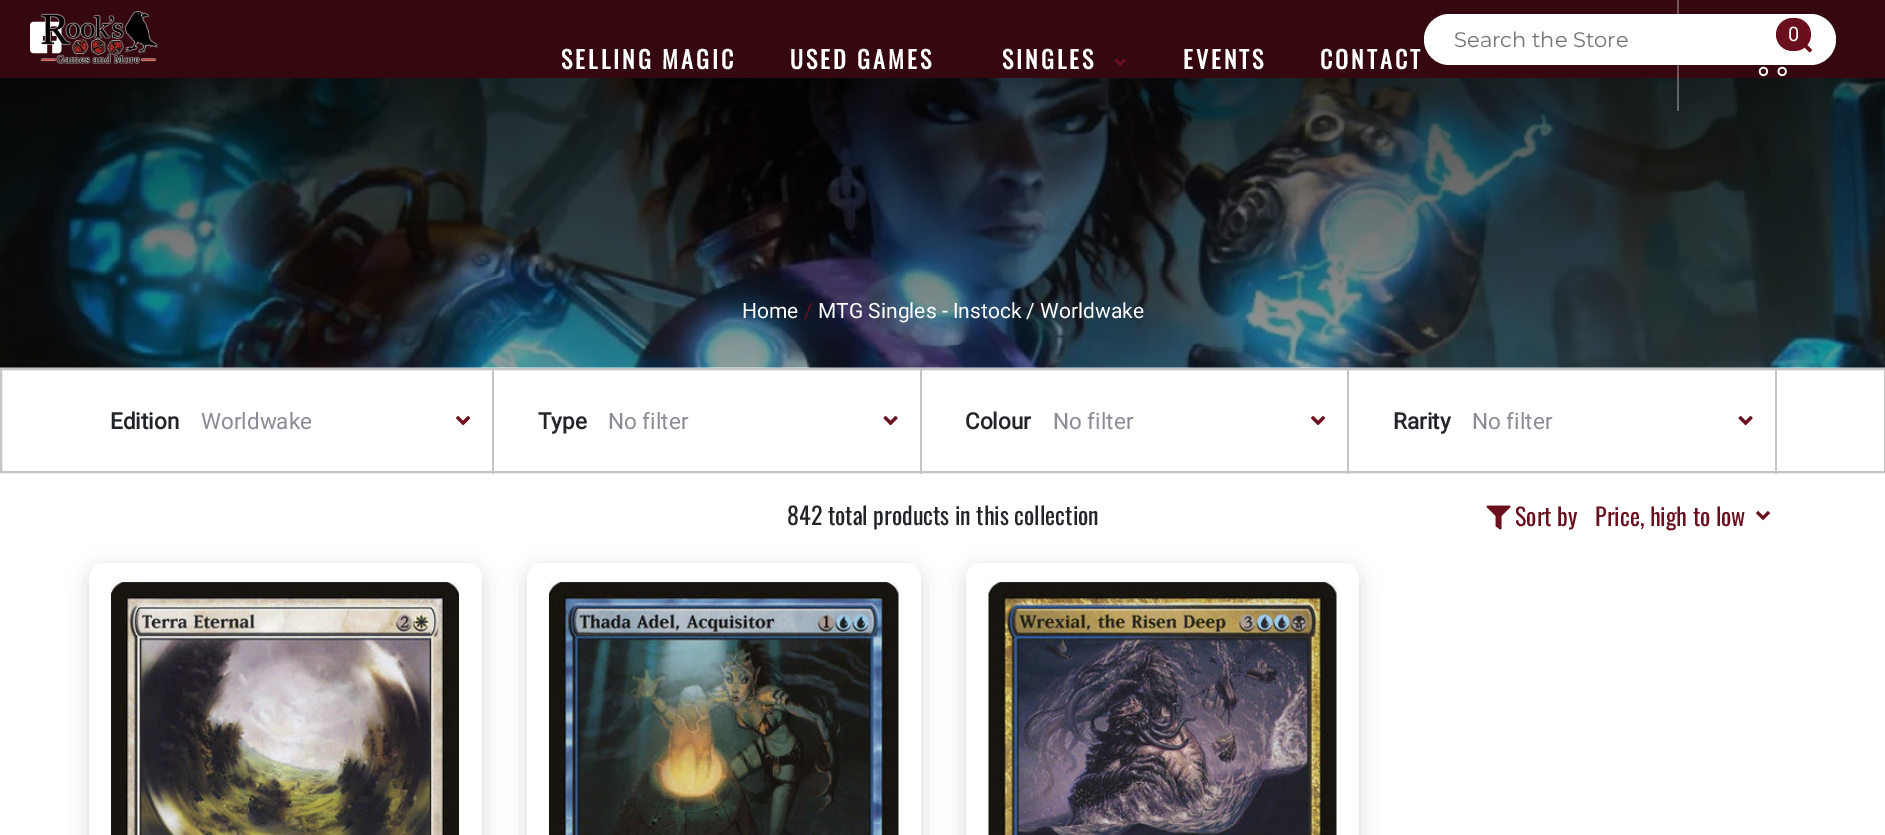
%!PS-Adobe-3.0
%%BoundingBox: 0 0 1885 835
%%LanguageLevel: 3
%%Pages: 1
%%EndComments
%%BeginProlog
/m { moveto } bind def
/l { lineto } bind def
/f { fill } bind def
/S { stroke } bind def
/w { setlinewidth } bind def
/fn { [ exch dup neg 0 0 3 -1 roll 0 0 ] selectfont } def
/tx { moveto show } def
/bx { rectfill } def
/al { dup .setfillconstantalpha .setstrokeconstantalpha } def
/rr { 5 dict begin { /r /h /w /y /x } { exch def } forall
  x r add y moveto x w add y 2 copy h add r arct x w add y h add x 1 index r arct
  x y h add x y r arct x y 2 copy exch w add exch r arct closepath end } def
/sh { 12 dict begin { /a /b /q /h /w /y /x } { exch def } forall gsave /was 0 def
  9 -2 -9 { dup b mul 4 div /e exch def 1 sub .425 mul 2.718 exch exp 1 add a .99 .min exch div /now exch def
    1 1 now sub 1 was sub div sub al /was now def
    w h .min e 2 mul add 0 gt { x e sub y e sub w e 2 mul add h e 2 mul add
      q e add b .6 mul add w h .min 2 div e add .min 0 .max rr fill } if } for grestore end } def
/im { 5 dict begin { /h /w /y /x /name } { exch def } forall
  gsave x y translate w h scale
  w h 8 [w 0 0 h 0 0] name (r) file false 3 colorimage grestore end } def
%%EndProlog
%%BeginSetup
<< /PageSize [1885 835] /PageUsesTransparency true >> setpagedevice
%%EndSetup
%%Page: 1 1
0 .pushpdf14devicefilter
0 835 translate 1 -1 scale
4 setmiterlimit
1 setgray
0 0 1885 835 bx
0.208 0.031 0.059 setrgbcolor
0 0 1885 78 bx
(image3.raw) 30 21 32 33 im
(image0.raw) 40 11 118 53 im
1 setgray
1424 14 412 51 25.5 rr f
(image5.raw) 0 78 1885 290 im
0.3 al
1677 0 2 111 bx
1 al
(image1.raw) 1758 40 33 37 im
(image4.raw) 1804 44 8 9 im
0.416 0.059 0.114 setrgbcolor
1776 18 35 33 16.5 rr f
/Roboto-Regular 20 fn
1 setgray
(0) 1788 41 tx
/Oswald-Bold 24 fn
561 69 m 3 0 (SELLING MAGIC) ashow
790 69 m 3 0 (USED GAMES) ashow
1002 69 m 3 0 (SINGLES) ashow
(image2.raw) 1114 58 12 8 im
1183 69 m 3 0 (EVENTS) ashow
1320 69 m 3 0 (CONTACT) ashow
/Montserrat-Regular 21 fn
0.459 setgray
(Search the Store) 1454 47 tx
/Roboto-Regular 21 fn
1 setgray
(Home) 742 318 tx
0.416 0.059 0.114 setrgbcolor
(/) 804 318 tx
1 setgray
(MTG Singles - Instock / Worldwake) 818 318 tx
0.769 setgray
2 w
1 369 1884 103 rectstroke
492 369 2 105 bx
/Roboto-Bold 22.5 fn
0.129 0.145 0.161 setrgbcolor
(Edition) 110 429 tx
/Roboto-Regular 22.5 fn
0.537 0.549 0.584 setrgbcolor
(Worldwake) 201 429 tx
(image6.raw) 456 416 15 10 im
0.769 setgray
920 369 2 105 bx
/Roboto-Bold 22.5 fn
0.129 0.145 0.161 setrgbcolor
(Type) 538 429 tx
/Roboto-Regular 22.5 fn
0.537 0.549 0.584 setrgbcolor
(No filter) 608 429 tx
(image7.raw) 883 416 15 10 im
0.769 setgray
1347 369 2 105 bx
/Roboto-Bold 22.5 fn
0.129 0.145 0.161 setrgbcolor
(Colour) 965 429 tx
/Roboto-Regular 22.5 fn
0.537 0.549 0.584 setrgbcolor
(No filter) 1053 429 tx
(image6.raw) 1311 416 15 10 im
0.769 setgray
1775 369 2 105 bx
/Roboto-Bold 22.5 fn
0.129 0.145 0.161 setrgbcolor
(Rarity) 1393 429 tx
/Roboto-Regular 22.5 fn
0.537 0.549 0.584 setrgbcolor
(No filter) 1472 429 tx
(image7.raw) 1738 416 15 10 im
/Oswald-Regular 24 fn
0.129 0.145 0.161 setrgbcolor
(842 total products in this collection) 787 525 tx
(image8.raw) 1486 505 25 25 im
0.416 0.059 0.114 setrgbcolor
(Sort by) 1515 526 tx
3 w
1757 512 m 1763 518 l 1769 512 l S
(Price, high to low) 1595 526 tx
0 setgray
89 569 393 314 15 11 0.15 sh
1 setgray
89 563 393 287 15 rr f
(image9.raw) 111 582 348 253 im
0 setgray
527 569 394 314 15 11 0.15 sh
1 setgray
527 563 394 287 15 rr f
(image10.raw) 549 582 350 253 im
0 setgray
966 569 393 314 15 11 0.15 sh
1 setgray
966 563 393 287 15 rr f
(image11.raw) 988 582 349 253 im
.poppdf14devicefilter showpage
%%EOF
